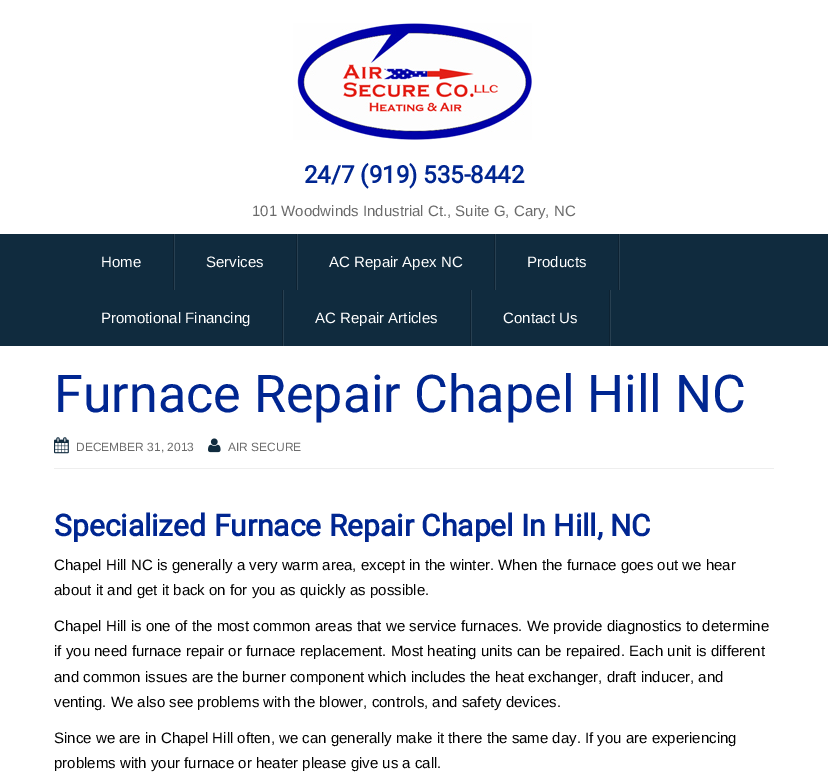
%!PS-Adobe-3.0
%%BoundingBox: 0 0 828 784
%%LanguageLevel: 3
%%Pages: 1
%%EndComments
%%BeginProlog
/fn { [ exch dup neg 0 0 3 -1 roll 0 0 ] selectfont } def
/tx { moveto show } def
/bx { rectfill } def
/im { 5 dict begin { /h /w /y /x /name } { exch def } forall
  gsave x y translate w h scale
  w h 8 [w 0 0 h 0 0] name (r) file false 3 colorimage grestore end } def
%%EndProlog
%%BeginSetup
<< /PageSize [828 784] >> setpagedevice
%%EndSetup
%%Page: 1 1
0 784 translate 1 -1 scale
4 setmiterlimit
1 setgray
0 0 828 784 bx
(image0.raw) 293 23 239 117 im
/Roboto-Bold 24 fn
0 0.149 0.569 setrgbcolor
(24/7 \(919\) 535-8442) 304 183 tx
/LiberationSans-Regular 15 fn
0.42 setgray
(101 Woodwinds Industrial Ct., Suite G, Cary, NC) 252 216 tx
0.063 0.169 0.243 setrgbcolor
0 234 828 112 bx
0.157 0.251 0.318 setrgbcolor
174 234 1 56 bx
0.051 0.133 0.196 setrgbcolor
173 234 1 56 bx
1 setgray
(Home) 101 267 tx
0.157 0.251 0.318 setrgbcolor
297 234 1 56 bx
0.051 0.133 0.196 setrgbcolor
296 234 1 56 bx
1 setgray
(Services) 206 267 tx
0.157 0.251 0.318 setrgbcolor
495 234 1 56 bx
0.051 0.133 0.196 setrgbcolor
494 234 1 56 bx
1 setgray
(AC Repair Apex NC) 329 267 tx
0.157 0.251 0.318 setrgbcolor
619 234 1 56 bx
0.051 0.133 0.196 setrgbcolor
618 234 1 56 bx
1 setgray
(Products) 527 267 tx
0.157 0.251 0.318 setrgbcolor
283 290 1 56 bx
0.051 0.133 0.196 setrgbcolor
282 290 1 56 bx
1 setgray
(Promotional Financing) 101 323 tx
0.157 0.251 0.318 setrgbcolor
471 290 1 56 bx
0.051 0.133 0.196 setrgbcolor
470 290 1 56 bx
1 setgray
(AC Repair Articles) 315 323 tx
0.157 0.251 0.318 setrgbcolor
610 290 1 56 bx
0.051 0.133 0.196 setrgbcolor
609 290 1 56 bx
1 setgray
(Contact Us) 503 323 tx
0.933 setgray
54 468 720 1 bx
/Roboto-Regular 52 fn
0 0.149 0.569 setrgbcolor
(Furnace Repair Chapel Hill NC) 54 412 tx
(image1.raw) 54 437 15 17 im
/LiberationSans-Regular 12 fn
0.42 setgray
(DECEMBER 31, 2013) 76 451 tx
(image2.raw) 208 438 13 15 im
(AIR SECURE) 228 451 tx
/Roboto-Bold 30 fn
0 0.149 0.569 setrgbcolor
(Specialized Furnace Repair Chapel In Hill, NC) 54 536 tx
/LiberationSans-Regular 15 fn
0.008 setgray
(Chapel Hill NC is generally a very warm area, except in the winter. When the furnace goes out we hear) 54 570 tx
(about it and get it back on for you as quickly as possible.) 54 595 tx
(Chapel Hill is one of the most common areas that we service furnaces. We provide diagnostics to determine) 54 631 tx
(if you need furnace repair or furnace replacement. Most heating units can be repaired. Each unit is different) 54 656 tx
(and common issues are the burner component which includes the heat exchanger, draft inducer, and) 54 682 tx
(venting. We also see problems with the blower, controls, and safety devices.) 54 707 tx
(Since we are in Chapel Hill often, we can generally make it there the same day. If you are experiencing) 54 743 tx
(problems with your furnace or heater please give us a call.) 54 768 tx
showpage
%%EOF
